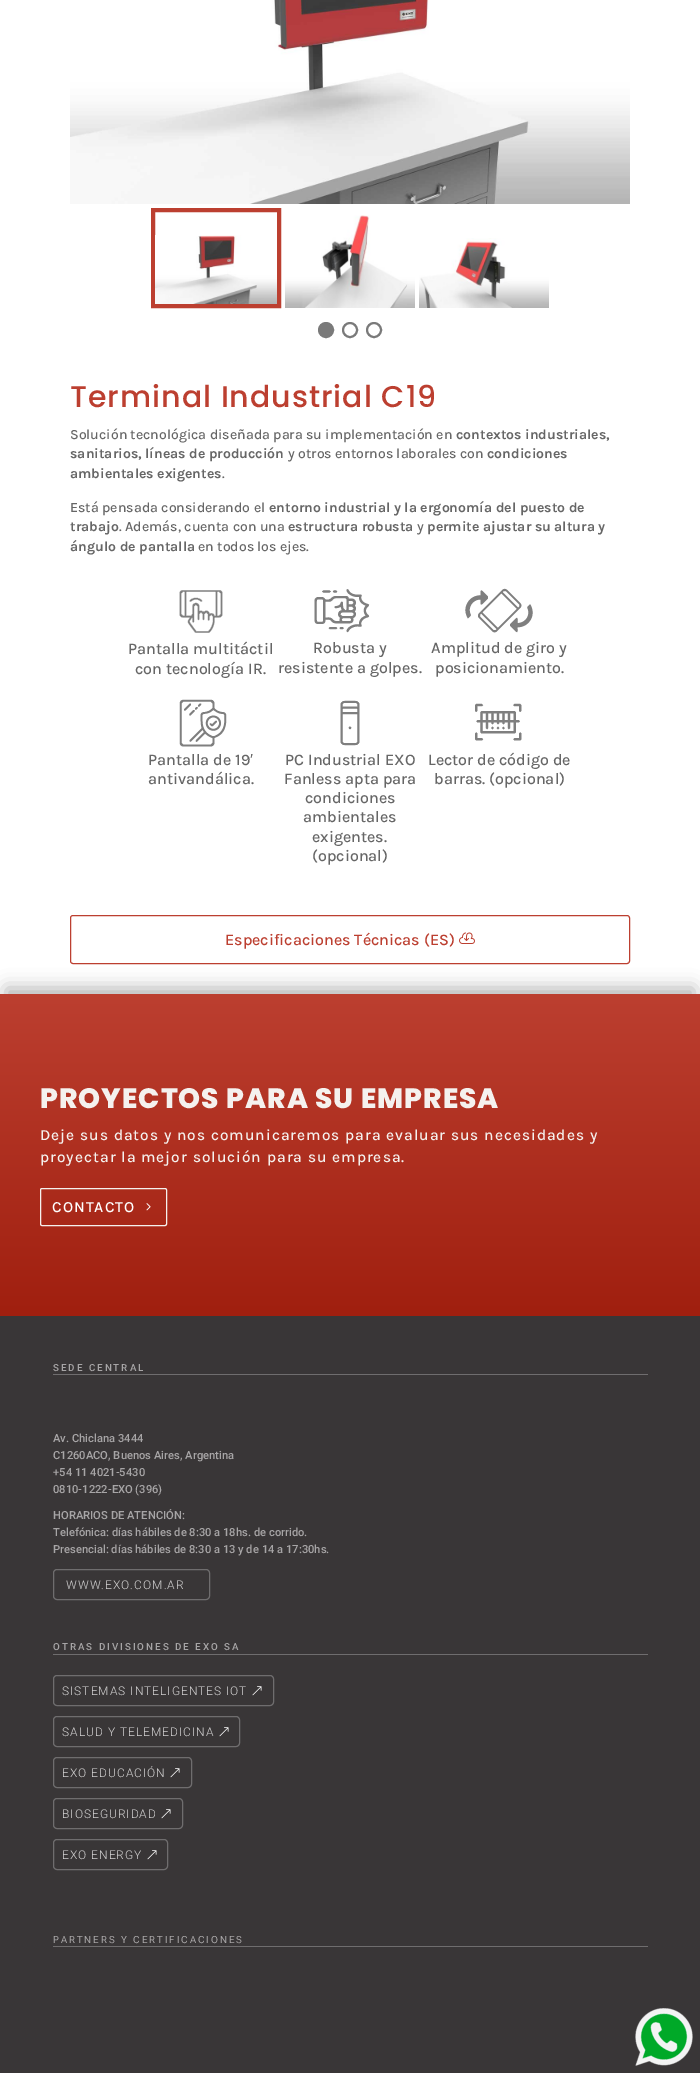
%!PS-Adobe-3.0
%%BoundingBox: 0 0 700 2073
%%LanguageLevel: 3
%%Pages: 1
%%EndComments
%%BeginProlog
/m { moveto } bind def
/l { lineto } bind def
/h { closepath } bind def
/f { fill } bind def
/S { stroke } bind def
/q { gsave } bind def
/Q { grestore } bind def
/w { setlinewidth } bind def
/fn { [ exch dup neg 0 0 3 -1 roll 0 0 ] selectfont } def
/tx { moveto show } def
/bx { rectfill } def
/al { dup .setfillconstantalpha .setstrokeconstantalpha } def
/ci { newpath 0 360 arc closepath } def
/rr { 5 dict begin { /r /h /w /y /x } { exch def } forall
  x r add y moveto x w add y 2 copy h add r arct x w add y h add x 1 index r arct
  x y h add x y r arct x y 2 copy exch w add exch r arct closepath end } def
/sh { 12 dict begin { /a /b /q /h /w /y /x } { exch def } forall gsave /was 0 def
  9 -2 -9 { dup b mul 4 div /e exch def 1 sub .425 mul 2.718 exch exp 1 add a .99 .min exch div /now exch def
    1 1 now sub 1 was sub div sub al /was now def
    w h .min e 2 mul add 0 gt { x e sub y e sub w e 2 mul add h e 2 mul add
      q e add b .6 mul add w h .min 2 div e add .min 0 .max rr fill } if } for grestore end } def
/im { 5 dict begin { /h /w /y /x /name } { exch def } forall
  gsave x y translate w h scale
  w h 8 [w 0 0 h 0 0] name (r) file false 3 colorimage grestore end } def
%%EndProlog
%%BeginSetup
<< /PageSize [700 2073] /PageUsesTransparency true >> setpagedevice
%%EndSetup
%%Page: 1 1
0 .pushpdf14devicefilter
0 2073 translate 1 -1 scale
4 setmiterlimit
1 setgray
0 0 700 2073 bx
(image0.raw) 70 0 560 204 im
0.737 0.247 0.188 setrgbcolor
4 w
153 210 126 96 rectstroke
(image1.raw) 155 235 122 69 im
(image2.raw) 285 215 130 93 im
(image3.raw) 419 238 130 70 im
0.478 setgray
326 330 7 ci q f Q
2 w
S
350 330 7 ci S
374 330 7 ci S
/Poppins-Medium 30 fn
0.737 0.247 0.188 setrgbcolor
70 407 m 1 0 (Terminal Industrial C19) ashow
/Karla-Medium 14 fn
0.4 setgray
(Solución tecnológica diseñada para su implementación en) 70 439 tx
/Karla-Bold 14 fn
(contextos industriales,) 456 439 tx
(sanitarios, líneas de producción) 70 458 tx
/Karla-Medium 14 fn
(y otros entornos laborales con) 288 458 tx
/Karla-Bold 14 fn
(condiciones) 487 458 tx
(ambientales exigentes) 70 478 tx
/Karla-Medium 14 fn
(.) 222 478 tx
(Está pensada considerando el) 70 512 tx
/Karla-Bold 14 fn
(entorno industrial y la ergonomía del puesto de) 269 512 tx
(trabajo) 70 531 tx
/Karla-Medium 14 fn
(. Además, cuenta con una) 119 531 tx
/Karla-Bold 14 fn
(estructura robusta) 288 531 tx
/Karla-Medium 14 fn
(y) 417 531 tx
/Karla-Bold 14 fn
(permite ajustar su altura y) 427 531 tx
(ángulo de pantalla) 70 551 tx
/Karla-Medium 14 fn
(en todos los ejes.) 198 551 tx
(image4.raw) 179 590 44 43 im
/Karla-Medium 16 fn
(Pantalla multitáctil) 128 654 tx
(con tecnología IR.) 135 674 tx
(image5.raw) 314 589 56 44 im
(Robusta y) 313 653 tx
(resistente a golpes.) 278 673 tx
(image6.raw) 465 588 68 45 im
(Amplitud de giro y) 431 653 tx
(posicionamiento.) 435 673 tx
(image7.raw) 179 699 48 48 im
(Pantalla de 19) 148 765 tx
/LiberationSans-Regular 16 fn
(′) 250 765 tx
/Karla-Medium 16 fn
(antivandálica.) 148 784 tx
(image8.raw) 340 700 20 46 im
(PC Industrial EXO) 285 765 tx
(Fanless apta para) 284 784 tx
(condiciones) 305 803 tx
(ambientales) 303 822 tx
(exigentes.) 312 842 tx
(\(opcional\)) 312 861 tx
(image9.raw) 475 703 47 38 im
(Lector de código de) 428 765 tx
(barras. \(opcional\)) 434 784 tx
0.737 0.247 0.188 setrgbcolor
1 w
70.5 915.5 559 48 2.5 rr S
(Especificaciones Técnicas \(ES\)) 225 945 tx
(image10.raw) 459 932 16 12 im
0 setgray
6 988 688 310 0 9 0.3 sh
q 0 994 m 700 994 l 700 1316 l 0 1316 l h clip newpath
<< /ShadingType 2 /ColorSpace /DeviceRGB /Coords [350 994 350 1316] /Extend [true true] /Function << /FunctionType 2 /Domain [0 1] /C0 [0.737 0.247 0.188] /C1 [0.627 0.122 0.059] /N 1 >> >> shfill Q
/Poppins-ExtraBold 28 fn
0.961 0.945 0.933 setrgbcolor
40 1108 m 1 0 (PROYECTOS PARA SU EMPRESA) ashow
/Karla-Medium 15.4 fn
40 1140 m 1 0 (Deje sus datos y nos comunicaremos para evaluar sus necesidades y) ashow
40 1162 m 1 0 (proyectar la mejor solución para su empresa.) ashow
40.5 1188.5 126 37 1.5 rr S
1 setgray
52 1212 m 1 0 (CONTACTO) ashow
(image11.raw) 146 1203 5 8 im
0.224 0.212 0.216 setrgbcolor
0 1316 700 757 bx
0.435 0.427 0.431 setrgbcolor
53 1374 595 1 bx
/Roboto-Medium 9.75 fn
0.655 0.647 0.651 setrgbcolor
53 1371 m 2 0 (SEDE CENTRAL) ashow
/Roboto-Medium 11.2 fn
(Av. Chiclana 3444) 53 1442 tx
(C1260ACO, Buenos Aires, Argentina) 53 1459 tx
(+54 11 4021-5430) 53 1476 tx
(0810-1222-EXO \(396\)) 53 1493 tx
(HORARIOS DE ATENCIÓN:) 53 1519 tx
(Telefónica: días hábiles de 8:30 a 18hs. de corrido.) 53 1536 tx
(Presencial: días hábiles de 8:30 a 13 y de 14 a 17:30hs.) 53 1553 tx
0.435 0.427 0.431 setrgbcolor
53.5 1569.5 156 30 3.5 rr S
/Roboto-Light 12 fn
0.827 0.824 0.824 setrgbcolor
66 1589 m 1 0 (WWW.EXO.COM.AR) ashow
0.435 0.427 0.431 setrgbcolor
53 1654 595 1 bx
/Roboto-Medium 9.75 fn
0.655 0.647 0.651 setrgbcolor
53 1650 m 2 0 (OTRAS DIVISIONES DE EXO SA) ashow
0.435 0.427 0.431 setrgbcolor
53.5 1675.5 220 30 3.5 rr S
/Roboto-Light 12 fn
0.827 0.824 0.824 setrgbcolor
62 1695 m 1 0 (SISTEMAS INTELIGENTES IOT) ashow
(image12.raw) 252 1686 10 10 im
0.435 0.427 0.431 setrgbcolor
53.5 1716.5 186 30 3.5 rr S
0.827 0.824 0.824 setrgbcolor
62 1736 m 1 0 (SALUD Y TELEMEDICINA) ashow
(image12.raw) 219 1727 10 10 im
0.435 0.427 0.431 setrgbcolor
53.5 1757.5 138 30 3.5 rr S
0.827 0.824 0.824 setrgbcolor
62 1777 m 1 0 (EXO EDUCACIÓN) ashow
(image12.raw) 170 1768 10 10 im
0.435 0.427 0.431 setrgbcolor
53.5 1798.5 129 30 3.5 rr S
0.827 0.824 0.824 setrgbcolor
62 1818 m 1 0 (BIOSEGURIDAD) ashow
(image12.raw) 161 1809 10 10 im
0.435 0.427 0.431 setrgbcolor
53.5 1839.5 114 30 3.5 rr S
0.827 0.824 0.824 setrgbcolor
62 1859 m 1 0 (EXO ENERGY) ashow
(image12.raw) 147 1850 10 10 im
0.435 0.427 0.431 setrgbcolor
53 1946 595 1 bx
/RobotoFlex-Regular 9.75 fn
0.655 0.647 0.651 setrgbcolor
53 1943 m 2 0 (PARTNERS Y CERTIFICACIONES) ashow
(image13.raw) 635 2008 58 58 im
.poppdf14devicefilter showpage
%%EOF
